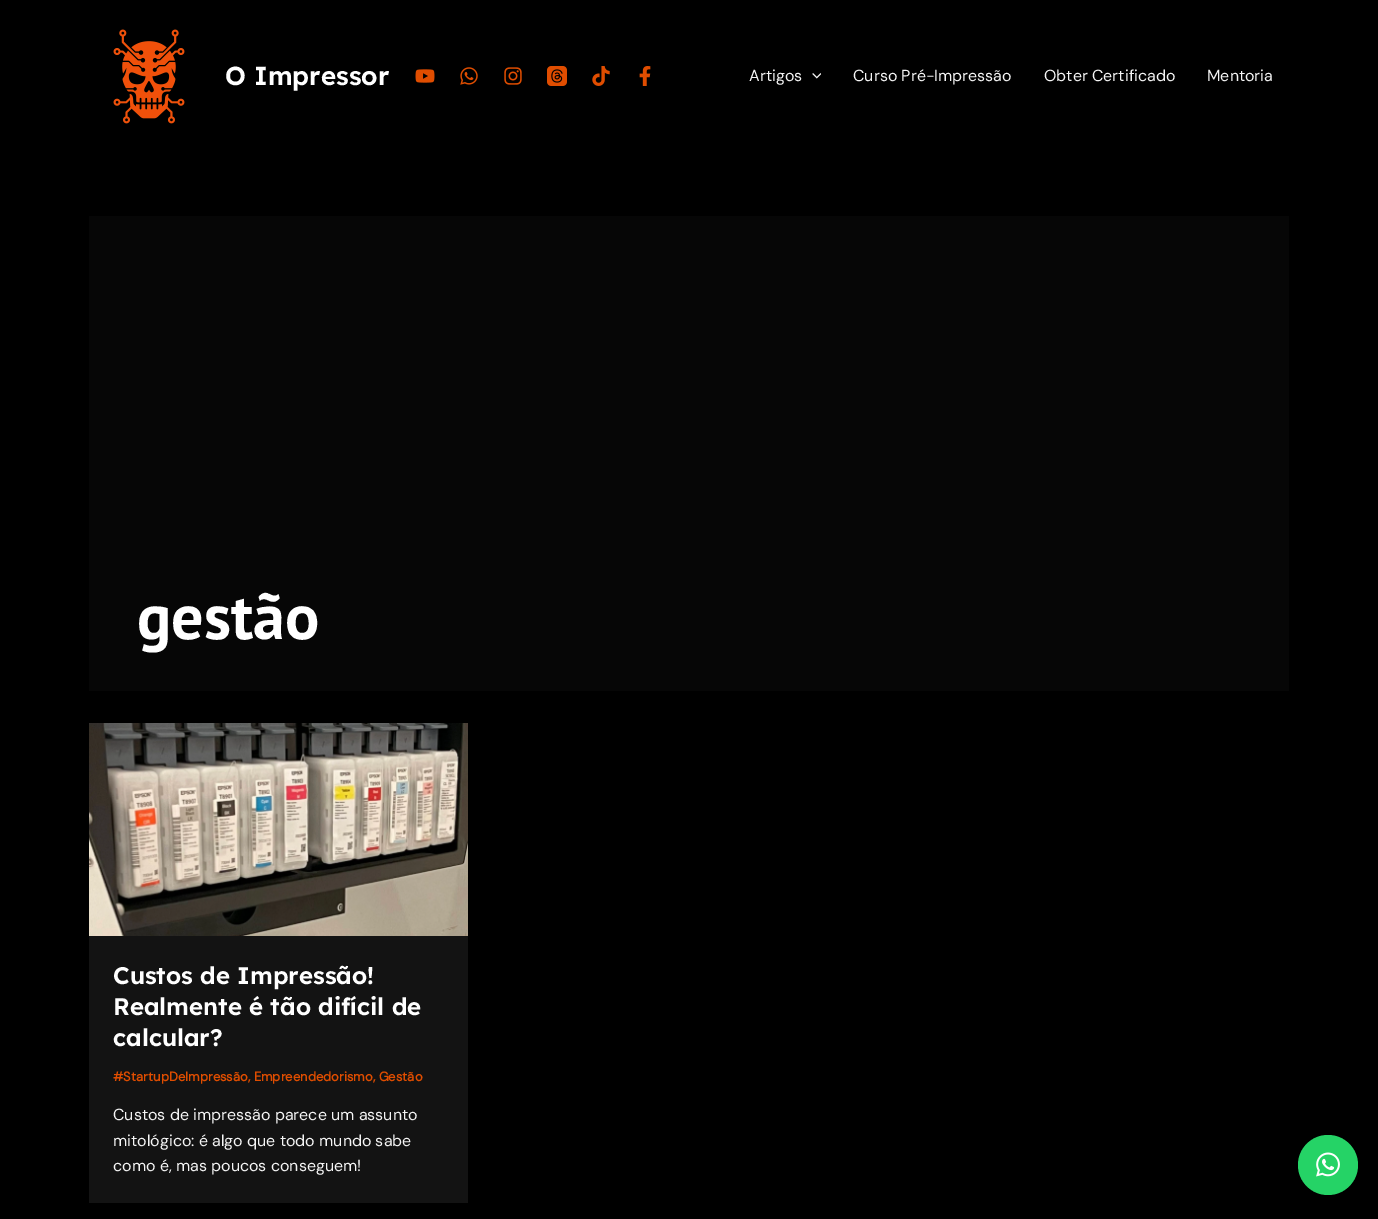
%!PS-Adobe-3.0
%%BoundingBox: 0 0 1378 1219
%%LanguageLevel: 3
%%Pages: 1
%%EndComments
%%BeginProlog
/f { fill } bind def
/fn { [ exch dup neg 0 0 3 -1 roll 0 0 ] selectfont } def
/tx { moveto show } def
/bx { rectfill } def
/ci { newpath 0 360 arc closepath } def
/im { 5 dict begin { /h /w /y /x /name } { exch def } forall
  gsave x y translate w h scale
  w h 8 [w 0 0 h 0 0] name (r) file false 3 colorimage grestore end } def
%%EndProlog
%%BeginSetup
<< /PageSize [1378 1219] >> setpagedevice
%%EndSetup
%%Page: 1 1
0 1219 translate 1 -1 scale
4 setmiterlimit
0 setgray
0 0 1378 1219 bx
(image0.raw) 113 29 72 95 im
/Lexend-SemiBold 26 fn
1 setgray
(O Impressor) 225 85 tx
(image1.raw) 415 69 20 14 im
(image2.raw) 460 67 18 18 im
(image3.raw) 504 67 18 18 im
(image4.raw) 547 66 20 20 im
(image5.raw) 592 66 18 20 im
(image6.raw) 639 66 12 20 im
/DMSans-Regular 16 fn
0.961 setgray
(Artigos) 749 81 tx
(image7.raw) 812 73 9 6 im
(Curso Pré-Impressão) 853 81 tx
(Obter Certificado) 1044 81 tx
(Mentoria) 1207 81 tx
0.024 setgray
89 216 1200 475 bx
/PTSans-Bold 64 fn
1 setgray
(gestão) 137 639 tx
0.075 setgray
89 936 379 267 bx
(image8.raw) 89 723 379 213 im
/Lexend-SemiBold 24 fn
1 setgray
(Custos de Impressão!) 113 984 tx
(Realmente é tão difícil de) 113 1015 tx
(calcular?) 113 1046 tx
/DMSans-Bold 13 fn
0.878 0.302 0 setrgbcolor
(#StartupDeImpressão, Empreendedorismo, Gestão) 113 1081 tx
/DMSans-Regular 16 fn
0.961 setgray
(Custos de impressão parece um assunto) 113 1120 tx
(mitológico: é algo que todo mundo sabe) 113 1146 tx
(como é, mas poucos conseguem!) 113 1171 tx
0.145 0.827 0.4 setrgbcolor
1328 1165 30 ci f
(image9.raw) 1316 1152 24 25 im
showpage
%%EOF
